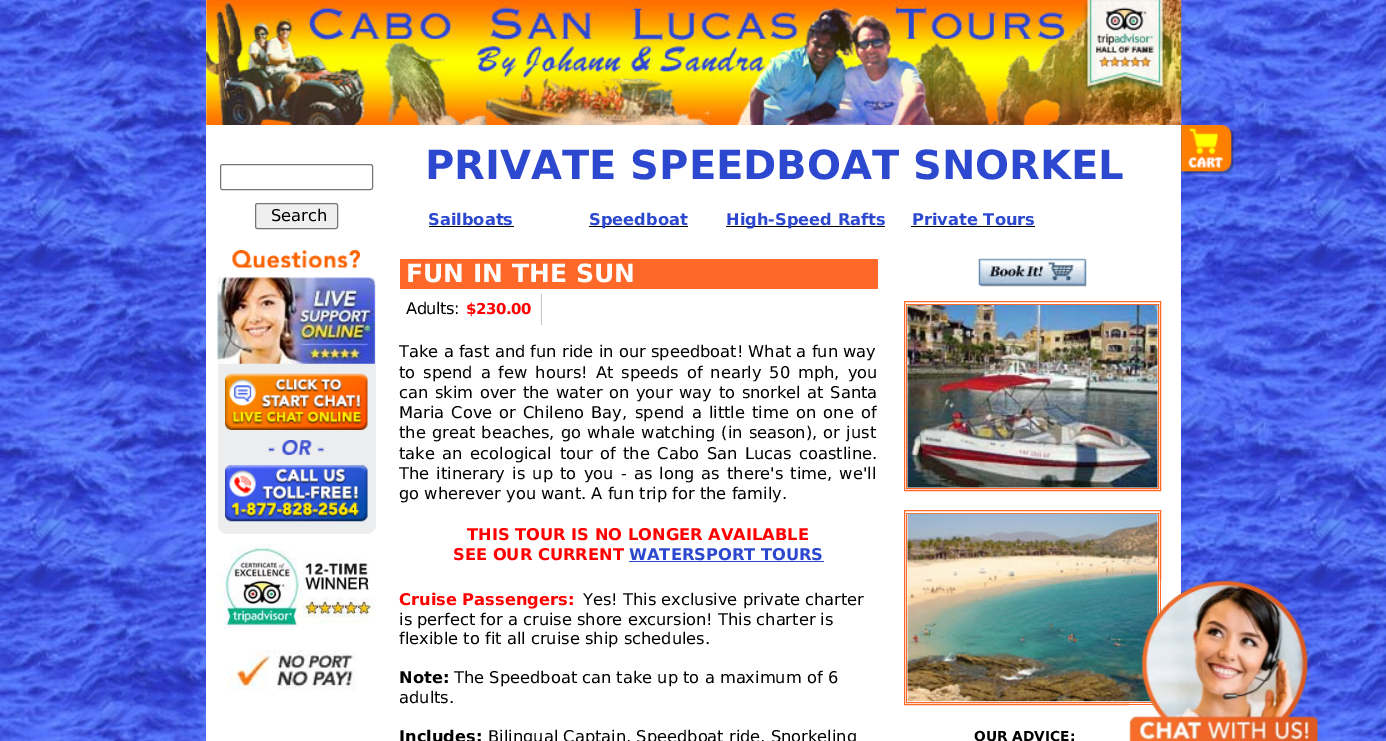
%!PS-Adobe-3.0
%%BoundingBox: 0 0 1386 741
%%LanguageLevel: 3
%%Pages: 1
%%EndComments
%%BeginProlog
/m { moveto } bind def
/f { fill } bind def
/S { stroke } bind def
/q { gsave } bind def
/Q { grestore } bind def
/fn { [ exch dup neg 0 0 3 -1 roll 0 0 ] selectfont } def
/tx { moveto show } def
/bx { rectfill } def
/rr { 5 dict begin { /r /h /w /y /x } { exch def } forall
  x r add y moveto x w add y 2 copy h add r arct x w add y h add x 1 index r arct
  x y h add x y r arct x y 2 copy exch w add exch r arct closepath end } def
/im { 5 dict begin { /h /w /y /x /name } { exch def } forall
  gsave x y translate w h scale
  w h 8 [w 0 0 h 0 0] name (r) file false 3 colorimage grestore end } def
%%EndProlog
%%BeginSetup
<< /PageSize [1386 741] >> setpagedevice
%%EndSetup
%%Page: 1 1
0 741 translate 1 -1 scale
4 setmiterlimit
1 setgray
0 0 1386 741 bx
(image0.raw) 0 0 1386 741 im
206 0 975 741 bx
(image1.raw) 206 0 976 125 im
0.463 setgray
220.5 164.5 152 25 2 rr S
0.937 setgray
255.5 203.5 82 25 2 rr q f Q
0.463 setgray
S
/DejaVuSans-Regular 16.25 fn
0 setgray
(Search) 271 221 tx
(image2.raw) 232 250 128 18 im
0.925 0.929 0.937 setrgbcolor
218 278 158 256 10 rr f
(image3.raw) 217 277 158 87 im
(image4.raw) 225 373 143 57 im
(image5.raw) 268 440 56 15 im
(image6.raw) 225 465 143 57 im
(image7.raw) 217 544 159 87 im
(image8.raw) 227 650 130 41 im
/DejaVuSans-Bold 40 fn
0.173 0.282 0.812 setrgbcolor
(PRIVATE SPEEDBOAT SNORKEL) 425 179 tx
/DejaVuSans-Bold 16.25 fn
(Sailboats) 428 225 tx
0 setgray
429 226 85 1 bx
589 226 99 1 bx
0.173 0.282 0.812 setrgbcolor
(Speedboat) 589 225 tx
0 setgray
726 226 159 1 bx
0.173 0.282 0.812 setrgbcolor
(High-Speed Rafts) 726 225 tx
(Private Tours) 912 225 tx
0 setgray
911 226 124 1 bx
0.996 0.412 0.161 setrgbcolor
400 259 478 30 bx
/DejaVuSans-Bold 25 fn
1 setgray
(FUN IN THE SUN) 406 282 tx
/DejaVuSans-Regular 16.25 fn
0 setgray
406 314 m -0.5 0 (Adults:) ashow
/DejaVuSans-Bold 15 fn
1 0 0 setrgbcolor
466 314 m -0.5 0 ($230.00) ashow
0.773 setgray
541 294 1 31 bx
/DejaVuSans-Regular 16.25 fn
0 setgray
399 357 m 0.1 0 32 (Take a fast and fun ride in our speedboat! What a fun way) widthshow
399 378 m 2.75 0 32 (to spend a few hours!) widthshow
596 378 m 2.75 0 32 (At speeds of nearly 50 mph, you) widthshow
399 398 m 1.5 0 32 (can skim over the water on your way to snorkel at Santa) widthshow
399 418 m 2 0 32 (Maria Cove or Chileno Bay,) widthshow
635 418 m 2 0 32 (spend a little time on one of) widthshow
399 438 m 1 0 32 (the great beaches, go whale watching \(in season\), or just) widthshow
399 459 m 2.5 0 32 (take an ecological tour of) widthshow
623 459 m 2.5 0 32 (the Cabo San Lucas coastline.) widthshow
399 479 m 2 0 32 (The itinerary is up to you - as long as there's time, we'll) widthshow
(go wherever you want. A fun trip for the family.) 399 499 tx
/DejaVuSans-Bold 16.25 fn
1 0 0 setrgbcolor
(THIS TOUR IS NO LONGER AVAILABLE) 467 540 tx
(SEE OUR CURRENT) 453 560 tx
0.173 0.282 0.812 setrgbcolor
(WATERSPORT TOURS) 629 560 tx
629 561 195 1 bx
1 0 0 setrgbcolor
(Cruise Passengers:) 399 605 tx
/DejaVuSans-Regular 16.25 fn
0 setgray
(Yes! This exclusive private charter) 583 605 tx
(is perfect for a cruise shore excursion! This charter is) 399 625 tx
(flexible to fit all cruise ship schedules.) 399 644 tx
/DejaVuSans-Bold 16.25 fn
(Note:) 399 683 tx
/DejaVuSans-Regular 16.25 fn
(The Speedboat can take up to a maximum of 6) 454 683 tx
(adults.) 399 703 tx
/DejaVuSans-Bold 16.25 fn
(Includes:) 399 742 tx
/DejaVuSans-Regular 16.25 fn
(Bilingual Captain, Speedboat ride, Snorkeling) 488 742 tx
(image9.raw) 978 258 109 29 im
0.996 0.412 0.161 setrgbcolor
904.5 301.5 256 189 rectstroke
906.5 304.5 252 184 rectstroke
(image10.raw) 907 305 251 183 im
904.5 510.5 256 194 rectstroke
906.5 513.5 252 189 rectstroke
(image11.raw) 907 513 251 189 im
/DejaVuSans-Bold 13.75 fn
0 setgray
(OUR ADVICE:) 974 741 tx
(image12.raw) 1181 125 53 50 im
(image13.raw) 1129 580 189 161 im
showpage
%%EOF
